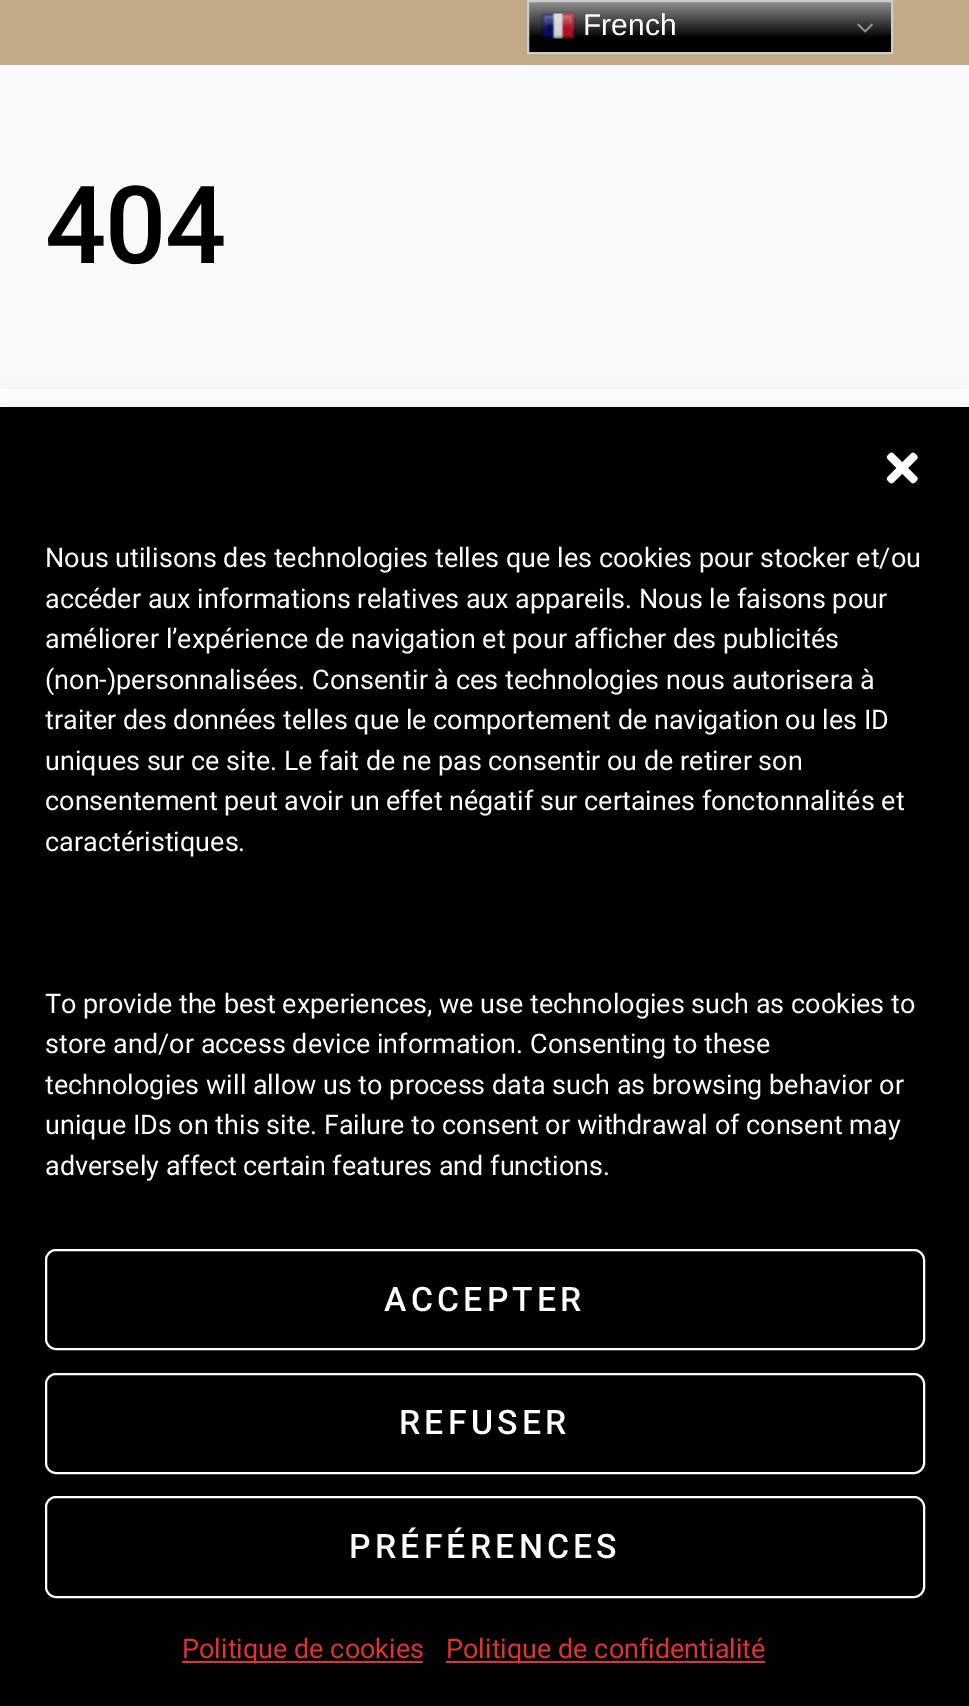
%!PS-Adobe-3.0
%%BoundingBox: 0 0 969 1706
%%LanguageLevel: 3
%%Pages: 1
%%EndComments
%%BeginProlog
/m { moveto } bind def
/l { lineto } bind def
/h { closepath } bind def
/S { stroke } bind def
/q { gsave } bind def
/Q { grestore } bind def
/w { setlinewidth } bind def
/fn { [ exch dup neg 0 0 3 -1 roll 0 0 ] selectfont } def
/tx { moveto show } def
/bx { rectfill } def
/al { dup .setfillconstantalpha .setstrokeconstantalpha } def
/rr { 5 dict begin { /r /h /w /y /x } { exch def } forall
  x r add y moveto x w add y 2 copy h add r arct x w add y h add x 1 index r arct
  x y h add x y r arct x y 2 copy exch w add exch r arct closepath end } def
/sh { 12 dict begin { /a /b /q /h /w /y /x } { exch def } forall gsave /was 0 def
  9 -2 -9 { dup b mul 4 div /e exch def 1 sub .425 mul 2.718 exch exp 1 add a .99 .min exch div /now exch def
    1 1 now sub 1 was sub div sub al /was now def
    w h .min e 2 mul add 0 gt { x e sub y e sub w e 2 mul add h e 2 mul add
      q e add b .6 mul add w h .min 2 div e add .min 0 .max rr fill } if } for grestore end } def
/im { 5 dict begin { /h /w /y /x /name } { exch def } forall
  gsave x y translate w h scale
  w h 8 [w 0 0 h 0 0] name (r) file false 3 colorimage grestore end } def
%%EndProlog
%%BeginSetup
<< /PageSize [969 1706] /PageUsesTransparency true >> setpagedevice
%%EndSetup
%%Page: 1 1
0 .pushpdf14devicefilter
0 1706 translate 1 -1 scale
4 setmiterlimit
1 setgray
0 0 969 1706 bx
0.757 0.667 0.533 setrgbcolor
0 0 969 65 bx
q 529 2 m 891 2 l 891 52 l 529 52 l h clip newpath
<< /ShadingType 2 /ColorSpace /DeviceRGB /Coords [710 0 710 54] /Extend [true true] /Function << /FunctionType 3 /Domain [0 1] /Functions [<< /FunctionType 2 /Domain [0 1] /C0 [0.588 0.588 0.588] /C1 [0 0 0] /N 1 >> << /FunctionType 2 /Domain [0 1] /C0 [0 0 0] /C1 [0 0 0] /N 1 >>] /Bounds [0.7] /Encode [0 1 0 1] >> >> shfill Q
0.8 setgray
2 w
528 1 364 52 rectstroke
(image0.raw) 540 11 36 28 im
/LiberationSans-Regular 30 fn
1 setgray
(French) 583 35 tx
(image1.raw) 857 23 16 10 im
0.973 0.976 0.98 setrgbcolor
0 65 969 324 bx
/Roboto-Medium 108 fn
0 setgray
45 263 m -1.5 0 (404) ashow
0 430 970 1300 0 22.5 0.19 sh
0 407 969 1299 bx
(image2.raw) 886 452 32 32 im
/Roboto-Regular 27 fn
1 setgray
(Nous utilisons des technologies telles que les cookies pour stocker et/ou) 45 567 tx
(accéder aux informations relatives aux appareils. Nous le faisons pour) 45 608 tx
(améliorer l’expérience de navigation et pour afficher des publicités) 45 648 tx
(\(non-\)personnalisées. Consentir à ces technologies nous autorisera à) 45 689 tx
(traiter des données telles que le comportement de navigation ou les ID) 45 729 tx
(uniques sur ce site. Le fait de ne pas consentir ou de retirer son) 45 770 tx
(consentement peut avoir un effet négatif sur certaines fonctonnalités et) 45 810 tx
(caractéristiques.) 45 851 tx
(To provide the best experiences, we use technologies such as cookies to) 45 1013 tx
(store and/or access device information. Consenting to these) 45 1053 tx
(technologies will allow us to process data such as browsing behavior or) 45 1094 tx
(unique IDs on this site. Failure to consent or withdrawal of consent may) 45 1134 tx
(adversely affect certain features and functions.) 45 1175 tx
46 1250 878 99 10 rr S
/Roboto-Medium 33.75 fn
384 1311 m 4.25 0 (ACCEPTER) ashow
46 1374 878 99 10 rr S
399 1434 m 4.25 0 (REFUSER) ashow
46 1497 878 100 10 rr S
349 1558 m 4.25 0 (PRÉFÉRENCES) ashow
0.867 0.2 0.2 setrgbcolor
182 1661 241 2 bx
/Roboto-Regular 27 fn
(Politique de cookies) 182 1658 tx
446 1661 319 2 bx
(Politique de confidentialité) 446 1658 tx
.poppdf14devicefilter showpage
%%EOF
